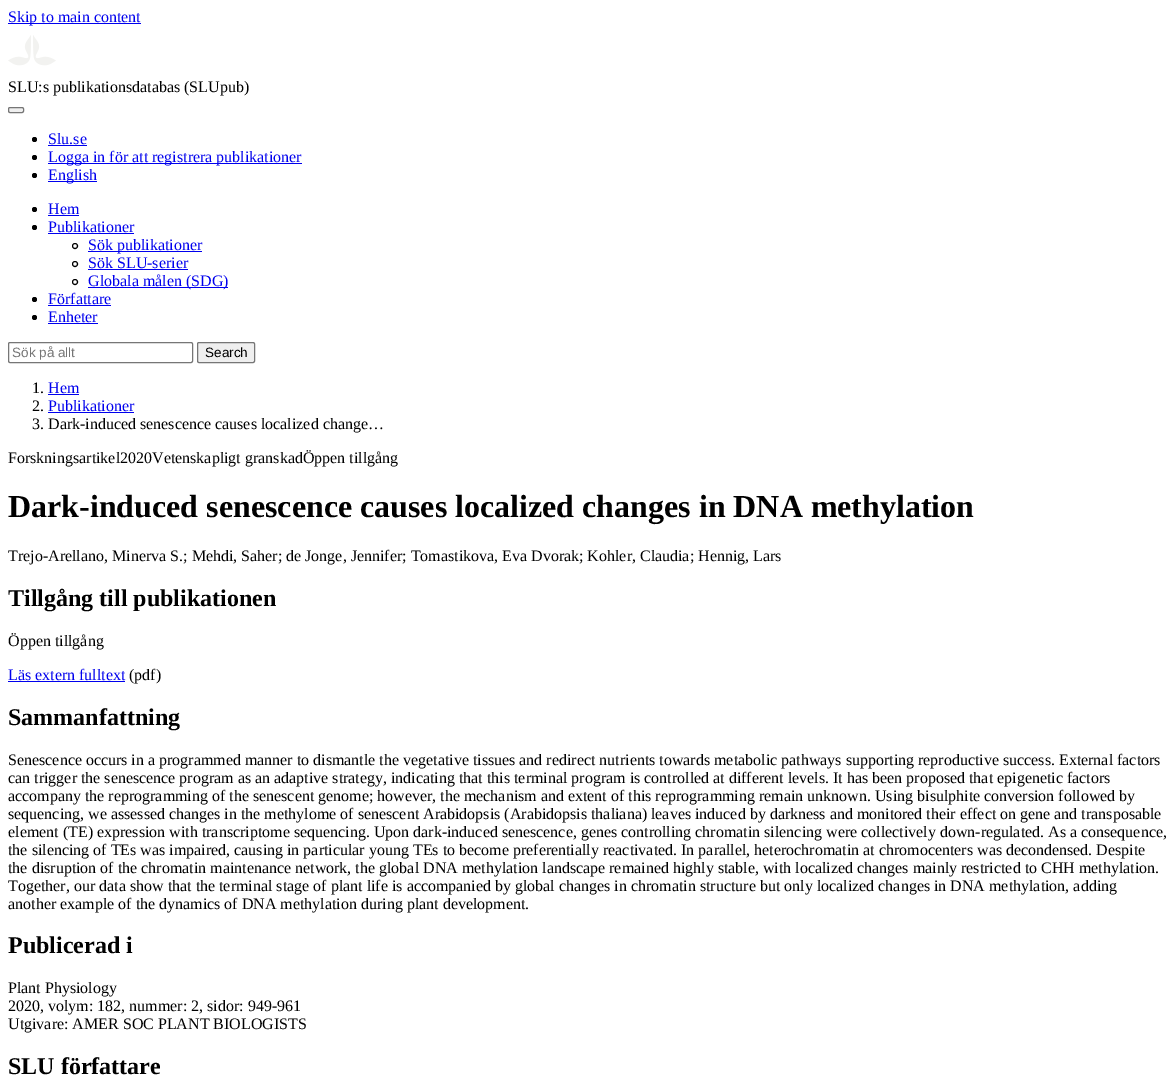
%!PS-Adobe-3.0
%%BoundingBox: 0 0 1176 1090
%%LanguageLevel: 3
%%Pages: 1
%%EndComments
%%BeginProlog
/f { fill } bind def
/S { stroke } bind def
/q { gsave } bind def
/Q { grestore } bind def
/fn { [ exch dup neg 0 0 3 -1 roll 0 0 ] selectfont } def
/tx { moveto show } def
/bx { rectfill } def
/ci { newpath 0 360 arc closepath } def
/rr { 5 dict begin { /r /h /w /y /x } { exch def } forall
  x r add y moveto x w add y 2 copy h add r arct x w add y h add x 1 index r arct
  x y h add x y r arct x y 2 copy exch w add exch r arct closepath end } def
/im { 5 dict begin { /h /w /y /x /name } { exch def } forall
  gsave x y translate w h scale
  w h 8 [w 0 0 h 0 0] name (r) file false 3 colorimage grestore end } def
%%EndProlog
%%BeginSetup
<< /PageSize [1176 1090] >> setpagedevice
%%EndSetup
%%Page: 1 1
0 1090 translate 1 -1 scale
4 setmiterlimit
1 setgray
0 0 1176 1090 bx
0 0 0.933 setrgbcolor
8 23 133 1 bx
/LiberationSerif-Regular 16 fn
(Skip to main content) 8 22 tx
(image0.raw) 8 35 48 31 im
0 setgray
(SLU:s publikationsdatabas \(SLUpub\)) 8 92 tx
0.937 setgray
8.5 107.5 15 5 1.5 rr q f Q
0.463 setgray
S
0 setgray
34.5 139.5 2.5 ci f
0 0 0.933 setrgbcolor
(Slu.se) 48 144 tx
48 145 39 1 bx
0 setgray
34.5 157.5 2.5 ci f
0 0 0.933 setrgbcolor
48 163 254 1 bx
(Logga in för att registrera publikationer) 48 162 tx
0 setgray
34.5 175.5 2.5 ci f
0 0 0.933 setrgbcolor
48 181 49 1 bx
(English) 48 180 tx
0 setgray
34.5 209.5 2.5 ci f
0 0 0.933 setrgbcolor
(Hem) 48 214 tx
48 215 31 1 bx
0 setgray
34.5 227.5 2.5 ci f
0 0 0.933 setrgbcolor
(Publikationer) 48 232 tx
48 233 86 1 bx
0 setgray
75 246 2.5 ci S
0 0 0.933 setrgbcolor
88 251 114 1 bx
(Sök publikationer) 88 250 tx
0 setgray
75 264 2.5 ci S
0 0 0.933 setrgbcolor
(Sök SLU-serier) 88 268 tx
88 269 100 1 bx
0 setgray
75 282 2.5 ci S
0 0 0.933 setrgbcolor
88 287 140 1 bx
(Globala målen \(SDG\)) 88 286 tx
0 setgray
34.5 299.5 2.5 ci f
0 0 0.933 setrgbcolor
(Författare) 48 304 tx
48 305 63 1 bx
0 setgray
34.5 317.5 2.5 ci f
0 0 0.933 setrgbcolor
(Enheter) 48 322 tx
48 323 50 1 bx
0.463 setgray
8.5 342.5 184 20 1.5 rr S
/LiberationSans-Regular 13.5 fn
0.459 setgray
(Sök på allt) 12 357 tx
0.937 setgray
197.5 342.5 57 20 1.5 rr q f Q
0.463 setgray
S
0 setgray
(Search) 205 357 tx
/LiberationSerif-Regular 16 fn
(1.) 32 393 tx
0 0 0.933 setrgbcolor
(Hem) 48 393 tx
48 394 31 1 bx
0 setgray
(2.) 32 411 tx
0 0 0.933 setrgbcolor
(Publikationer) 48 411 tx
48 412 86 1 bx
0 setgray
(3. Dark-induced senescence causes localized change…) 32 429 tx
(Forskningsartikel2020Vetenskapligt granskadÖppen tillgång) 8 463 tx
/LiberationSerif-Bold 32 fn
(Dark-induced senescence causes localized changes in DNA methylation) 8 517 tx
/LiberationSerif-Regular 16 fn
(Trejo-Arellano, Minerva S.; Mehdi, Saher; de Jonge, Jennifer; Tomastikova, Eva Dvorak; Kohler, Claudia; Hennig, Lars) 8 561 tx
/LiberationSerif-Bold 24 fn
(Tillgång till publikationen) 8 606 tx
/LiberationSerif-Regular 16 fn
(Öppen tillgång) 8 646 tx
0 0 0.933 setrgbcolor
(Läs extern fulltext) 8 680 tx
8 681 117 1 bx
0 setgray
(\(pdf\)) 129 680 tx
/LiberationSerif-Bold 24 fn
(Sammanfattning) 8 725 tx
/LiberationSerif-Regular 16 fn
(Senescence occurs in a programmed manner to dismantle the vegetative tissues and redirect nutrients towards metabolic pathways supporting reproductive success. External factors) 8 765 tx
(can trigger the senescence program as an adaptive strategy, indicating that this terminal program is controlled at different levels. It has been proposed that epigenetic factors) 8 783 tx
(accompany the reprogramming of the senescent genome; however, the mechanism and extent of this reprogramming remain unknown. Using bisulphite conversion followed by) 8 801 tx
(sequencing, we assessed changes in the methylome of senescent Arabidopsis \(Arabidopsis thaliana\) leaves induced by darkness and monitored their effect on gene and transposable) 8 819 tx
(element \(TE\) expression with transcriptome sequencing. Upon dark-induced senescence, genes controlling chromatin silencing were collectively down-regulated. As a consequence,) 8 837 tx
(the silencing of TEs was impaired, causing in particular young TEs to become preferentially reactivated. In parallel, heterochromatin at chromocenters was decondensed. Despite) 8 855 tx
(the disruption of the chromatin maintenance network, the global DNA methylation landscape remained highly stable, with localized changes mainly restricted to CHH methylation.) 8 873 tx
(Together, our data show that the terminal stage of plant life is accompanied by global changes in chromatin structure but only localized changes in DNA methylation, adding) 8 891 tx
(another example of the dynamics of DNA methylation during plant development.) 8 909 tx
/LiberationSerif-Bold 24 fn
(Publicerad i) 8 953 tx
/LiberationSerif-Regular 16 fn
(Plant Physiology) 8 993 tx
(2020, volym: 182, nummer: 2, sidor: 949-961) 8 1011 tx
(Utgivare: AMER SOC PLANT BIOLOGISTS) 8 1029 tx
/LiberationSerif-Bold 24 fn
(SLU författare) 8 1074 tx
showpage
%%EOF
